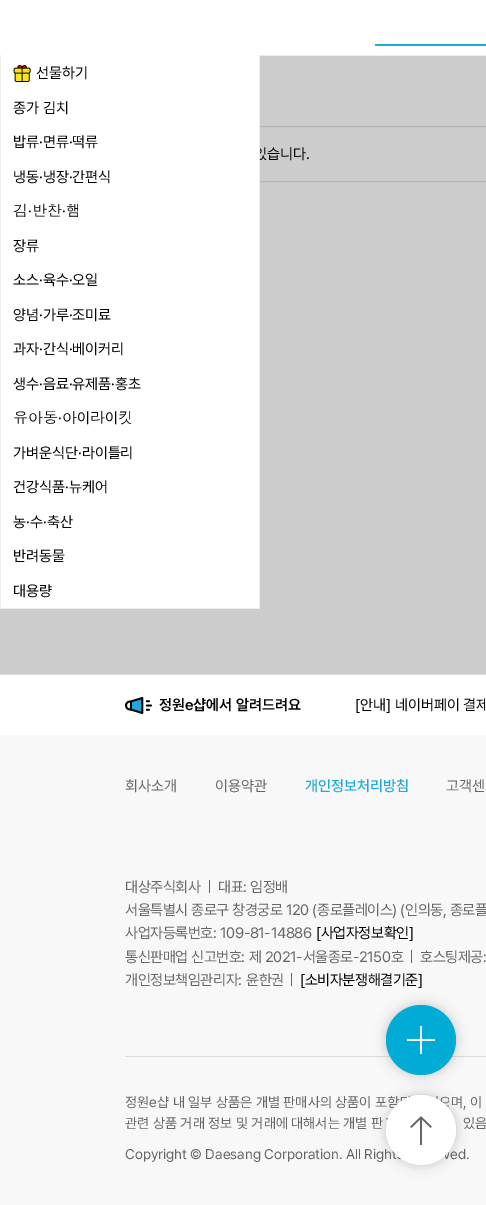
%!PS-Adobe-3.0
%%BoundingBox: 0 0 486 1205
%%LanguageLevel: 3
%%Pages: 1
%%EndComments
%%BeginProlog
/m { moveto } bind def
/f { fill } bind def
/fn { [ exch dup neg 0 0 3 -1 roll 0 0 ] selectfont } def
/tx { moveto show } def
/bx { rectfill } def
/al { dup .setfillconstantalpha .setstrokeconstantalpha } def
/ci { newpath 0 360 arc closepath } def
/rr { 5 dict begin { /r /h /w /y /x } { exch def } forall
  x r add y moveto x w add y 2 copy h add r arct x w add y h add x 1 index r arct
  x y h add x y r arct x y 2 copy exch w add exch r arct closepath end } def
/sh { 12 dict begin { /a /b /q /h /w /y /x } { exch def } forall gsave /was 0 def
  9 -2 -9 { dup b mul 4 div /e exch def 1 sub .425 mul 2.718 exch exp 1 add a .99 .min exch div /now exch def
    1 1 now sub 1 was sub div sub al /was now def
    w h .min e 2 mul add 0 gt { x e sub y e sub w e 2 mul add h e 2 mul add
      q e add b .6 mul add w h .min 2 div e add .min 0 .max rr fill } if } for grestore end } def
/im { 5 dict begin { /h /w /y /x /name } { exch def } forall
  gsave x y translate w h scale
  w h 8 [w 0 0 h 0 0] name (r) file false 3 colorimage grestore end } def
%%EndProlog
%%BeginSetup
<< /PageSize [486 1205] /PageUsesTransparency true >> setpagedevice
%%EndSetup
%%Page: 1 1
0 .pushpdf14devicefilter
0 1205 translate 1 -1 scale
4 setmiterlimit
0.8 setgray
0 0 486 1205 bx
1 setgray
0 0 486 55 bx
0.933 setgray
260 55 226 1 bx
0.118 0.663 0.863 setrgbcolor
375 44 111 2 bx
0.706 setgray
125.5 126.5 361 55 rectstroke
/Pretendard-Regular 15 fn
0 setgray
(있습니다.) 254 159 tx
1 setgray
1 55 258 553 bx
0.933 setgray
259 55 1 554 bx
0 608 260 1 bx
0 55 1 554 bx
(image0.raw) 13 65 18 17 im
0 setgray
(선물하기) 36 78 tx
(종가 김치) 13 113 tx
(밥류·면류·떡류) 13 147 tx
(냉동·냉장·간편식) 13 182 tx
/Dotum-Regular 15 fn
(김) 13 216 tx
/Pretendard-Regular 15 fn
(·) 28 216 tx
/Dotum-Regular 15 fn
(반찬) 32 216 tx
/Pretendard-Regular 15 fn
(·) 62 216 tx
/Dotum-Regular 15 fn
(햄) 66 216 tx
/Pretendard-Regular 15 fn
(장류) 13 251 tx
(소스·육수·오일) 13 285 tx
(양념·가루·조미료) 13 320 tx
(과자·간식·베이커리) 13 354 tx
(생수·음료·유제품·홍초) 13 389 tx
/Dotum-Regular 15 fn
(유아동) 13 423 tx
/Pretendard-Regular 15 fn
(·) 58 423 tx
/Dotum-Regular 15 fn
(아) 62 423 tx
/Pretendard-Regular 15 fn
(이) 77 423 tx
/Dotum-Regular 15 fn
(라) 90 423 tx
/Pretendard-Regular 15 fn
(이) 105 423 tx
/Dotum-Regular 15 fn
(킷) 118 423 tx
/Pretendard-Regular 15 fn
(가벼운식단·라이틀리) 13 458 tx
(건강식품·뉴케어) 13 492 tx
(농·수·축산) 13 527 tx
(반려동물) 13 561 tx
(대용량) 13 596 tx
0.973 setgray
0 735 486 470 bx
0.867 setgray
0 674 486 1 bx
1 setgray
0 675 486 60 bx
(image1.raw) 125 697 27 17 im
/Pretendard-SemiBold 15 fn
0 setgray
(정원e샵에서 알려드려요) 159 710 tx
/Pretendard-Regular 15 fn
([안내] 네이버페이 결제) 355 710 tx
0.4 setgray
(회사소개) 125 791 tx
(이용약관) 215 791 tx
/Pretendard-Medium 15 fn
0.118 0.663 0.863 setrgbcolor
(개인정보처리방침) 305 791 tx
/Pretendard-Regular 15 fn
0.4 setgray
(고객센) 446 791 tx
125 892 m -0.4 0 (대상주식회사) ashow
209 880 1 13 bx
218 892 m -0.4 0 (대표:) ashow
250 892 m -0.4 0 (임정배) ashow
125 915 m -0.4 0 (서울특별시 종로구 창경궁로 120 \(종로플레이스\) \(인의동, 종로플) ashow
125 938 m -0.4 0 (사업자등록번호:) ashow
220 938 m -0.4 0 (109-81-14886) ashow
0 setgray
316 938 m -0.4 0 ([사업자정보확인]) ashow
0.4 setgray
125 962 m -0.4 0 (통신판매업 신고번호:) ashow
249 962 m -0.4 0 (제 2021-서울종로-2150호) ashow
411 950 1 13 bx
420 962 m -0.4 0 (호스팅제공:) ashow
125 985 m -0.4 0 (개인정보책임관리자:) ashow
246 985 m -0.4 0 (윤한권) ashow
291 973 1 13 bx
0 setgray
300 985 m -0.4 0 ([소비자분쟁해결기준]) ashow
0.867 setgray
125 1056 361 1 bx
/Pretendard-Regular 14 fn
0.4 setgray
(정원e샵 내 일부 상품은 개별 판매사의 상품이 포) 125 1107 tx
(며, 이) 451 1107 tx
(관련 상품 거래 정보 및 거래에 대해서는 개별 판) 125 1128 tx
(있음) 463 1128 tx
(Copyright © Daesang Corporation. All Righ) 125 1159 tx
(ed.) 450 1159 tx
0 setgray
386 1005 70 70 35 6 0.2 sh
0 0.675 0.835 setrgbcolor
421 1040 35 ci f
1 setgray
407 1039 28 2 1 rr f
420 1026 2 28 1 rr f
0 setgray
386 1095 70 70 35 6 0.2 sh
1 setgray
421 1130 35 ci f
(image2.raw) 386 1096 63 63 im
.poppdf14devicefilter showpage
%%EOF
